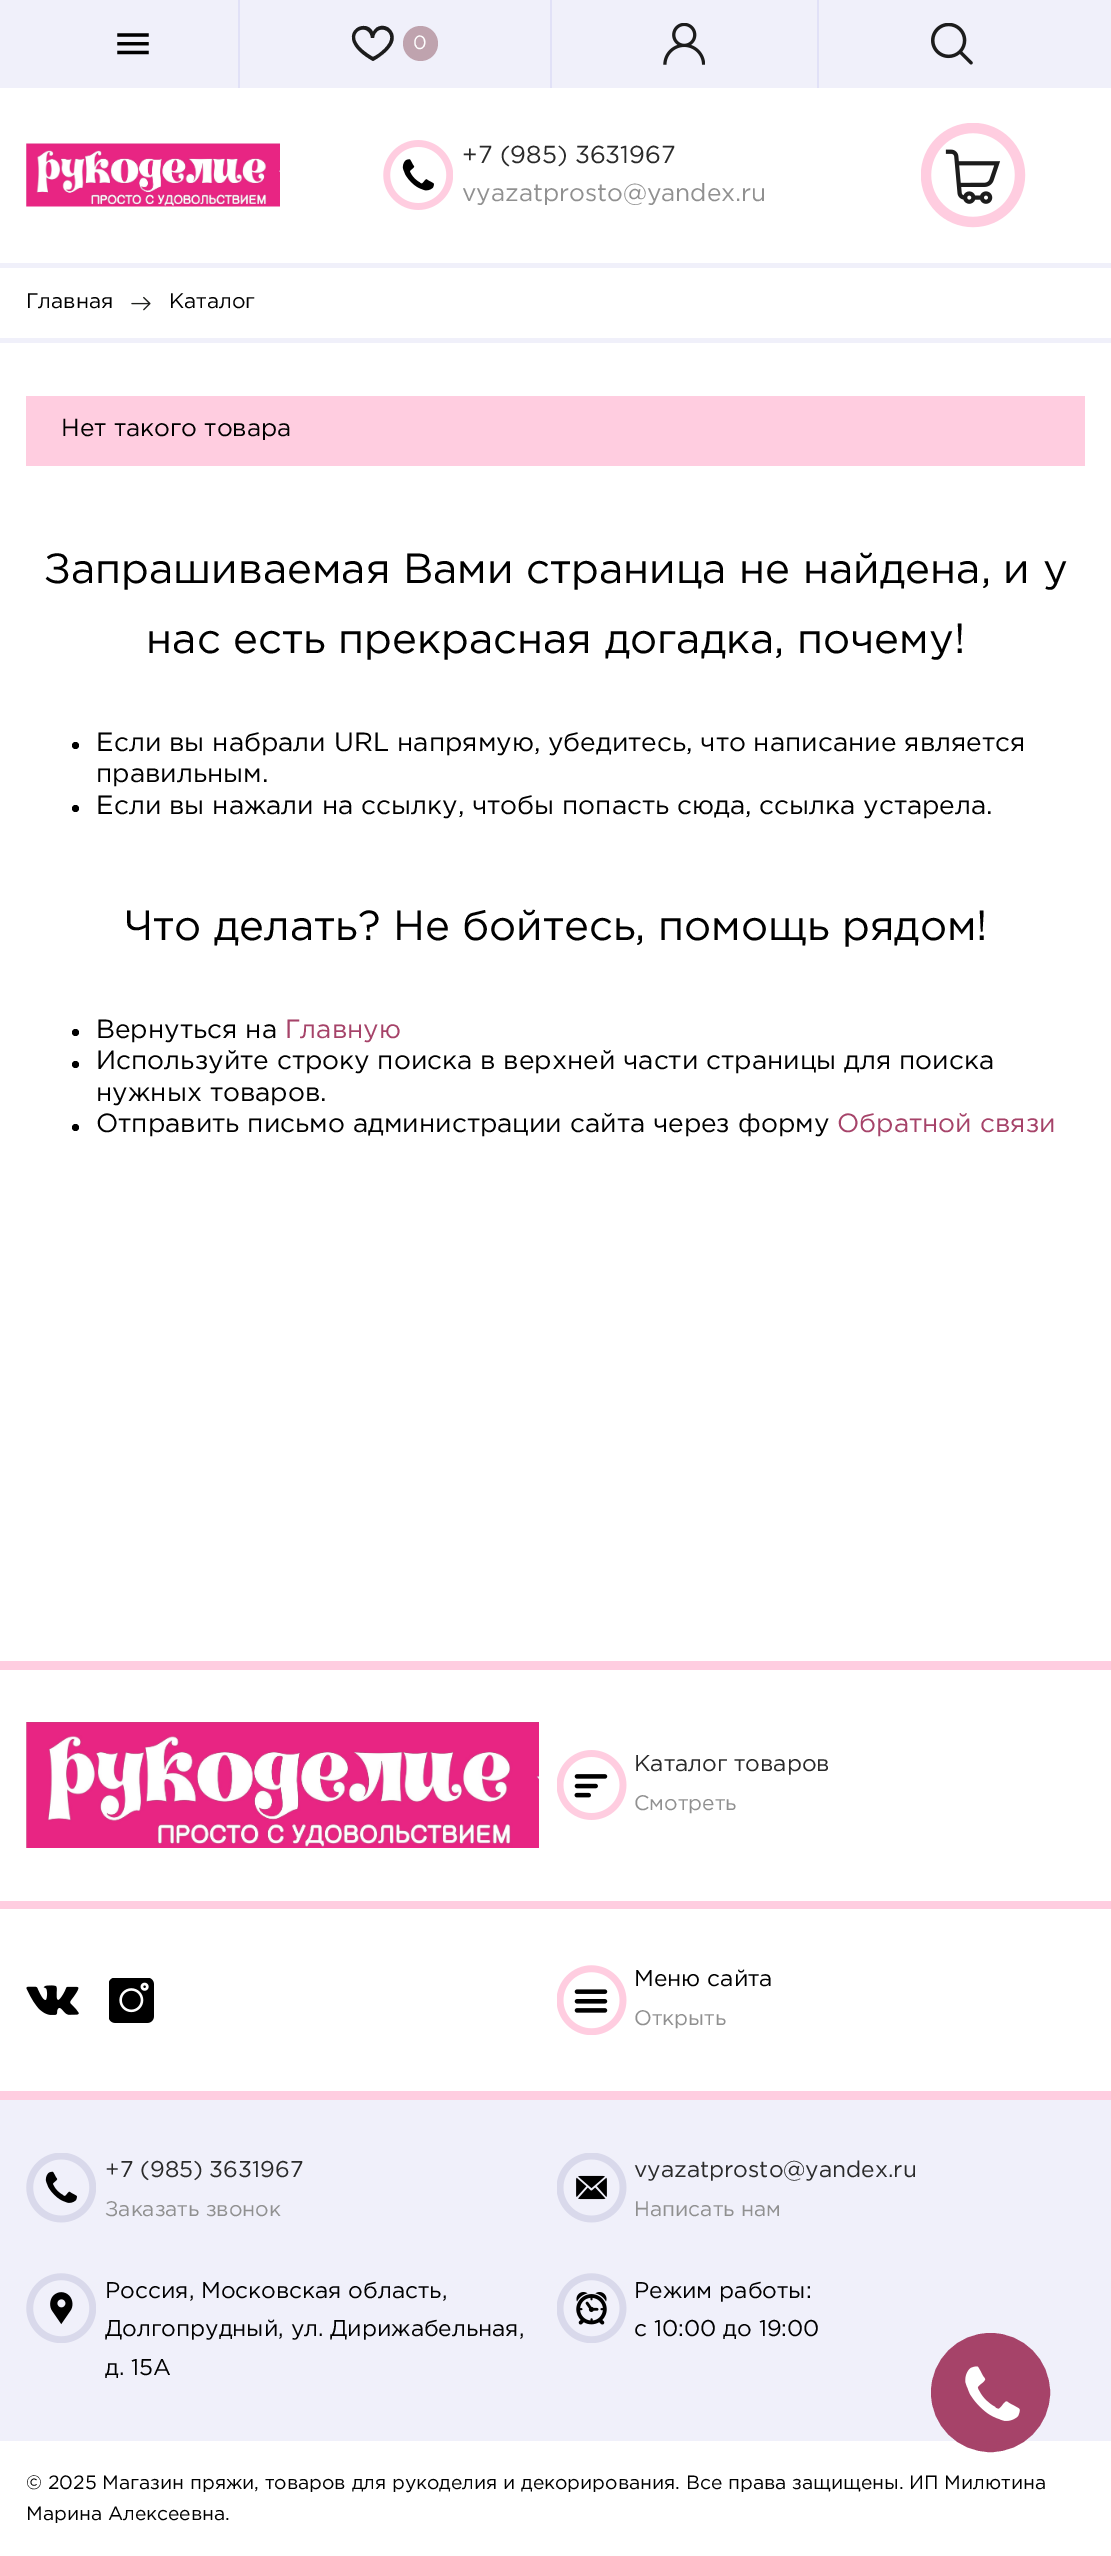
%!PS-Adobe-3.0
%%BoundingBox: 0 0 1111 2556
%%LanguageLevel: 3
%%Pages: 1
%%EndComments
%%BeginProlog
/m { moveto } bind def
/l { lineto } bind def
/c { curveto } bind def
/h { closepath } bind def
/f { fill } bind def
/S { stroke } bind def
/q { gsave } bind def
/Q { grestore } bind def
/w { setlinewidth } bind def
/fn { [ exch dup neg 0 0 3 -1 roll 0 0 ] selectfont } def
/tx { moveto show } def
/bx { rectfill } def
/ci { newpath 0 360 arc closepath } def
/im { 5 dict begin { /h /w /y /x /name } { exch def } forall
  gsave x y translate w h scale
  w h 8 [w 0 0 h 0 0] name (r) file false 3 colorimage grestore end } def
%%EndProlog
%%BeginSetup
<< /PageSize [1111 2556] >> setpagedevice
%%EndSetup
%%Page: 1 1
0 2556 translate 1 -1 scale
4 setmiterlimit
1 setgray
0 0 1111 2556 bx
0.941 0.941 0.98 setrgbcolor
0 0 1111 88 bx
(image0.raw) 117 33 32 22 im
0.882 0.882 0.969 setrgbcolor
238 0 2 88 bx
0.11 setgray
390 29 m 385 24 376 25 373 32 c 365 15 330 37 373 61 c 382 56 402 42 390 29 c h 384 49 m 380 53 377 55 373 57 c 335 35 369 19 371 38 c 374 38 l 376 21 402 32 384 49 c h f
0.749 0.639 0.682 setrgbcolor
420.5 43.5 17.5 ci f
/Gotham-Regular 19.25 fn
1 setgray
(0) 413 49 tx
0.882 0.882 0.969 setrgbcolor
550 0 2 88 bx
(image1.raw) 663 23 42 42 im
817 0 2 88 bx
(image2.raw) 931 23 42 42 im
(image3.raw) 26 143 254 64 im
(image4.raw) 383 140 70 70 im
/Gotham-Regular 24.5 fn
0.165 setgray
(+7 \(985\) 3631967) 462 163 tx
0.565 setgray
(vyazatprosto@yandex.ru) 462 201 tx
(image5.raw) 921 123 105 105 im
0.941 0.941 0.98 setrgbcolor
0 263 1111 5 bx
0 338 1111 5 bx
/Gotham-Regular 21 fn
0 setgray
(Главная) 26 308 tx
(image6.raw) 131 296 20 15 im
(Каталог) 169 308 tx
1 0.804 0.878 setrgbcolor
26 396 1059 70 bx
/Gotham-Regular 24.5 fn
0 setgray
(Нет такого товара) 61 436 tx
/Gotham-Regular 42 fn
(Запрашиваемая Вами страница не найдена, и у) 44 583 tx
(нас есть прекрасная догадка, почему!) 146 653 tx
75.5 745.5 3.5 ci f
/Gotham-Regular 26.25 fn
(Если вы набрали URL напрямую, убедитесь, что написание является) 96 751 tx
(правильным.) 96 782 tx
75.5 808.5 3.5 ci f
(Если вы нажали на ссылку, чтобы попасть сюда, ссылка устарела.) 96 814 tx
/Gotham-Regular 42 fn
(Что делать? Не бойтесь, помощь рядом!) 124 940 tx
75.5 1032.5 3.5 ci f
/Gotham-Regular 26.25 fn
(Вернуться на) 96 1038 tx
0.651 0.263 0.412 setrgbcolor
(Главную) 285 1038 tx
0 setgray
75.5 1064.5 3.5 ci f
(Используйте строку поиска в верхней части страницы для поиска) 96 1069 tx
(нужных товаров.) 96 1101 tx
75.5 1127.5 3.5 ci f
(Отправить письмо админиcтрации сайта через форму) 96 1132 tx
0.651 0.263 0.412 setrgbcolor
(Обратной связи) 837 1132 tx
1 0.804 0.878 setrgbcolor
0 1661 1111 9 bx
0 2091 1111 9 bx
(image7.raw) 26 1722 513 126 im
(image8.raw) 557 1750 70 70 im
/Gotham-Regular 22.75 fn
0.165 setgray
(Каталог товаров) 634 1771 tx
/Gotham-Regular 21 fn
0.565 setgray
(Смотреть) 634 1810 tx
1 0.804 0.878 setrgbcolor
0 1901 1111 8 bx
(image9.raw) 26 1985 53 30 im
(image10.raw) 109 1978 45 45 im
(image11.raw) 557 1965 70 70 im
/Gotham-Regular 22.75 fn
0 setgray
(Меню сайта) 634 1986 tx
/Gotham-Regular 21 fn
0.565 setgray
(Открыть) 634 2025 tx
0.941 0.941 0.98 setrgbcolor
0 2100 1111 341 bx
(image12.raw) 26 2153 70 70 im
/Gotham-Regular 22.75 fn
0.165 setgray
(+7 \(985\) 3631967) 105 2177 tx
/Gotham-Regular 21 fn
0.565 setgray
(Заказать звонок) 105 2216 tx
(image13.raw) 557 2153 70 70 im
/Gotham-Regular 22.75 fn
0.165 setgray
(vyazatprosto@yandex.ru) 634 2177 tx
/Gotham-Regular 21 fn
0.565 setgray
(Написать нам) 634 2216 tx
(image14.raw) 26 2273 70 70 im
/Gotham-Regular 22.75 fn
0 setgray
(Россия, Московская область,) 105 2298 tx
(Долгопрудный, ул. Дирижабельная,) 105 2336 tx
(д. 15А) 105 2375 tx
(image15.raw) 557 2273 70 70 im
(Режим работы:) 634 2298 tx
(с 10:00 до 19:00) 634 2336 tx
/Gotham-Regular 19.25 fn
(© 2025 Магазин пряжи, товаров для рукоделия и декорирования. Все права защищены. ИП Милютина) 26 2489 tx
(Марина Алексеевна.) 26 2520 tx
0.651 0.263 0.412 setrgbcolor
990.5 2392.5 57.5 ci q f Q
4 w
S
(image16.raw) 965 2366 55 55 im
showpage
%%EOF
